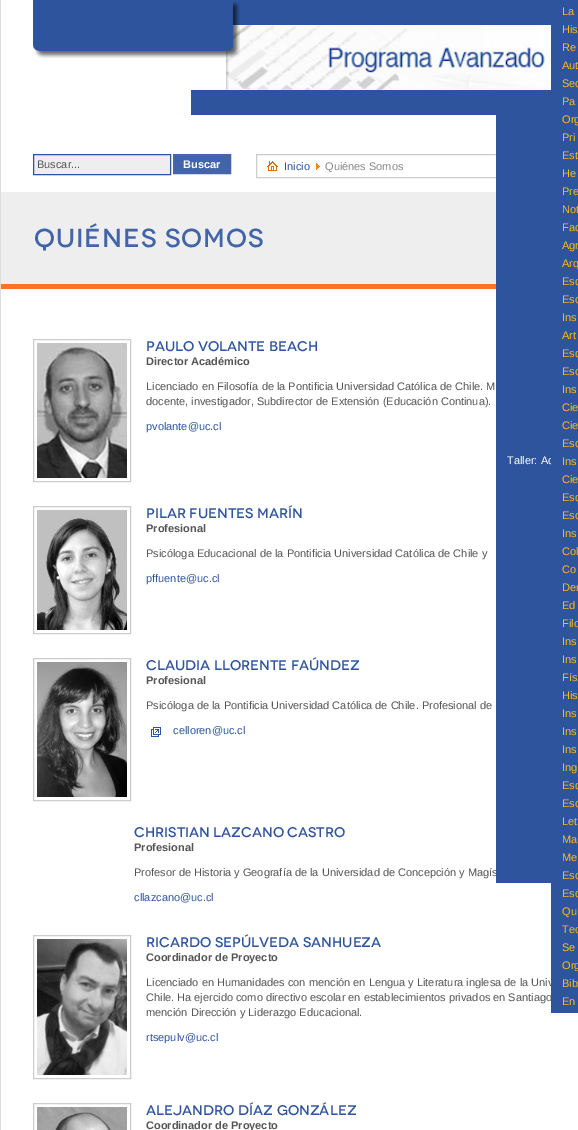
%!PS-Adobe-3.0
%%BoundingBox: 0 0 578 1130
%%LanguageLevel: 3
%%Pages: 1
%%EndComments
%%BeginProlog
/m { moveto } bind def
/l { lineto } bind def
/h { closepath } bind def
/f { fill } bind def
/S { stroke } bind def
/q { gsave } bind def
/Q { grestore } bind def
/fn { [ exch dup neg 0 0 3 -1 roll 0 0 ] selectfont } def
/tx { moveto show } def
/bx { rectfill } def
/im { 5 dict begin { /h /w /y /x /name } { exch def } forall
  gsave x y translate w h scale
  w h 8 [w 0 0 h 0 0] name (r) file false 3 colorimage grestore end } def
%%EndProlog
%%BeginSetup
<< /PageSize [578 1130] >> setpagedevice
%%EndSetup
%%Page: 1 1
0 1130 translate 1 -1 scale
4 setmiterlimit
1 setgray
0 0 578 1130 bx
0.867 setgray
0 0 1 1130 bx
0.933 setgray
33.5 154.5 m 170.5 154.5 l 170.5 174.5 l 33.5 174.5 l h q f Q
0.184 0.329 0.62 setrgbcolor
S
/LiberationSans-Regular 11 fn
0.333 setgray
(Buscar...) 37 168 tx
0.259 0.396 0.667 setrgbcolor
173.5 154.5 m 230.5 154.5 l 230.5 173.5 l 173.5 173.5 l h q f Q
0.302 0.384 0.682 setrgbcolor
S
/LiberationSans-Bold 11 fn
1 setgray
(Buscar) 183 168 tx
(image0.raw) 267 161 11 10 im
0.8 setgray
256.5 154.5 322 23 rectstroke
/LiberationSans-Regular 11 fn
0.184 0.329 0.62 setrgbcolor
(Inicio) 284 170 tx
(image1.raw) 316 163 4 7 im
0.533 setgray
(Quiénes Somos) 325 170 tx
0.184 0.329 0.62 setrgbcolor
33 0 173 13 bx
206 0 372 25 bx
(image2.raw) 233 1 7 12 im
(image6.raw) 226 25 325 65 im
33 13 194 32 bx
(image3.raw) 227 13 13 32 im
(image4.raw) 33 45 194 13 im
(image5.raw) 227 45 13 13 im
191 90 360 25 bx
0.333 setgray
(Profesor de Historia y Geografía de la Universidad de Concepción y Magís) 134 876 tx
0.184 0.329 0.62 setrgbcolor
496 115 55 768 bx
1 setgray
(Taller: Ac) 507 464 tx
0.184 0.329 0.62 setrgbcolor
551 25 27 946 bx
0.996 0.745 0.063 setrgbcolor
(La) 562 15 tx
(His) 562 33 tx
(Re) 562 51 tx
(Aut) 562 69 tx
(Sec) 562 87 tx
(Pa) 562 105 tx
(Org) 562 123 tx
(Pri) 562 141 tx
(Est) 562 159 tx
(He) 562 177 tx
(Pre) 562 195 tx
(Not) 562 213 tx
(Fac) 562 231 tx
(Agr) 562 249 tx
(Arq) 562 267 tx
(Esc) 562 285 tx
(Esc) 562 303 tx
(Ins) 562 321 tx
(Art) 562 339 tx
(Esc) 562 357 tx
(Esc) 562 375 tx
(Ins) 562 393 tx
(Cie) 562 411 tx
(Cie) 562 429 tx
(Esc) 562 447 tx
(Ins) 562 465 tx
(Cie) 562 483 tx
(Esc) 562 501 tx
(Esc) 562 519 tx
(Ins) 562 537 tx
(Col) 562 555 tx
(Co) 562 573 tx
(Der) 562 591 tx
(Ed) 562 609 tx
(Filo) 562 627 tx
(Ins) 562 645 tx
(Ins) 562 663 tx
(Fís) 562 681 tx
(His) 562 699 tx
(Ins) 562 717 tx
(Ins) 562 735 tx
(Ins) 562 753 tx
(Ing) 562 771 tx
(Esc) 562 789 tx
(Esc) 562 807 tx
(Let) 562 825 tx
(Ma) 562 843 tx
(Me) 562 861 tx
(Esc) 562 879 tx
(Esc) 562 897 tx
(Qu) 562 915 tx
(Teo) 562 933 tx
(Se) 562 951 tx
(Org) 562 969 tx
0.333 setgray
(Licenciado en Humanidades con mención en Lengua y Literatura inglesa de la Univ) 146 986 tx
(Chile. Ha ejercido como directivo escolar en establecimientos privados en Santiago) 146 1001 tx
0.184 0.329 0.62 setrgbcolor
551 971 27 42 bx
0.996 0.745 0.063 setrgbcolor
(Bib) 562 987 tx
(En) 562 1005 tx
0.933 setgray
1 192 495 92 bx
1 0.447 0.145 setrgbcolor
1 284 495 5 bx
/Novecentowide-Medium 26 fn
0.259 0.396 0.667 setrgbcolor
34 247 m 1 0 (Quiénes Somos) ashow
0.8 setgray
33.5 339.5 97 142 rectstroke
(image7.raw) 37 343 90 135 im
/Novecentowide-Medium 14 fn
0.184 0.329 0.62 setrgbcolor
(Paulo Volante Beach) 146 351 tx
/LiberationSans-Bold 11 fn
0.333 setgray
(Director Académico) 146 365 tx
/LiberationSans-Regular 11 fn
(Licenciado en Filosofía de la Pontificia Universidad Católica de Chile. M) 146 390 tx
(docente, investigador, Subdirector de Extensión \(Educación Continua\).) 146 405 tx
0.184 0.329 0.62 setrgbcolor
(pvolante@uc.cl) 146 430 tx
0.8 setgray
33.5 506.5 97 127 rectstroke
(image8.raw) 37 510 90 120 im
/Novecentowide-Medium 14 fn
0.184 0.329 0.62 setrgbcolor
(Pilar Fuentes Marín) 146 518 tx
/LiberationSans-Bold 11 fn
0.333 setgray
(Profesional) 146 532 tx
/LiberationSans-Regular 11 fn
(Psicóloga Educacional de la Pontificia Universidad Católica de Chile y) 146 557 tx
0.184 0.329 0.62 setrgbcolor
(pffuente@uc.cl) 146 582 tx
0.8 setgray
33.5 658.5 97 142 rectstroke
(image9.raw) 37 662 90 135 im
/Novecentowide-Medium 14 fn
0.184 0.329 0.62 setrgbcolor
(Claudia Llorente FaúNdez) 146 670 tx
/LiberationSans-Bold 11 fn
0.333 setgray
(Profesional) 146 684 tx
/LiberationSans-Regular 11 fn
(Psicóloga de la Pontificia Universidad Católica de Chile. Profesional de) 146 709 tx
(image10.raw) 151 727 10 10 im
0.184 0.329 0.62 setrgbcolor
(celloren@uc.cl) 173 734 tx
/Novecentowide-Medium 14 fn
(Christian lazcano castro) 134 837 tx
/LiberationSans-Bold 11 fn
0.333 setgray
(Profesional) 134 851 tx
/LiberationSans-Regular 11 fn
0.184 0.329 0.62 setrgbcolor
(cllazcano@uc.cl) 134 901 tx
0.8 setgray
33.5 935.5 97 143 rectstroke
(image11.raw) 37 939 90 136 im
/Novecentowide-Medium 14 fn
0.184 0.329 0.62 setrgbcolor
(RICARDO SEPÚLVEDA SANHUEZA) 146 947 tx
/LiberationSans-Bold 11 fn
0.333 setgray
(Coordinador de Proyecto) 146 961 tx
/LiberationSans-Regular 11 fn
(mención Dirección y Liderazgo Educacional.) 146 1016 tx
0.184 0.329 0.62 setrgbcolor
(rtsepulv@uc.cl) 146 1041 tx
0.8 setgray
33.5 1103.5 97 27 rectstroke
(image12.raw) 37 1107 90 23 im
/Novecentowide-Medium 14 fn
0.184 0.329 0.62 setrgbcolor
(Alejandro Díaz González) 146 1115 tx
/LiberationSans-Bold 11 fn
0.333 setgray
(Coordinador de Proyecto) 146 1129 tx
showpage
%%EOF
